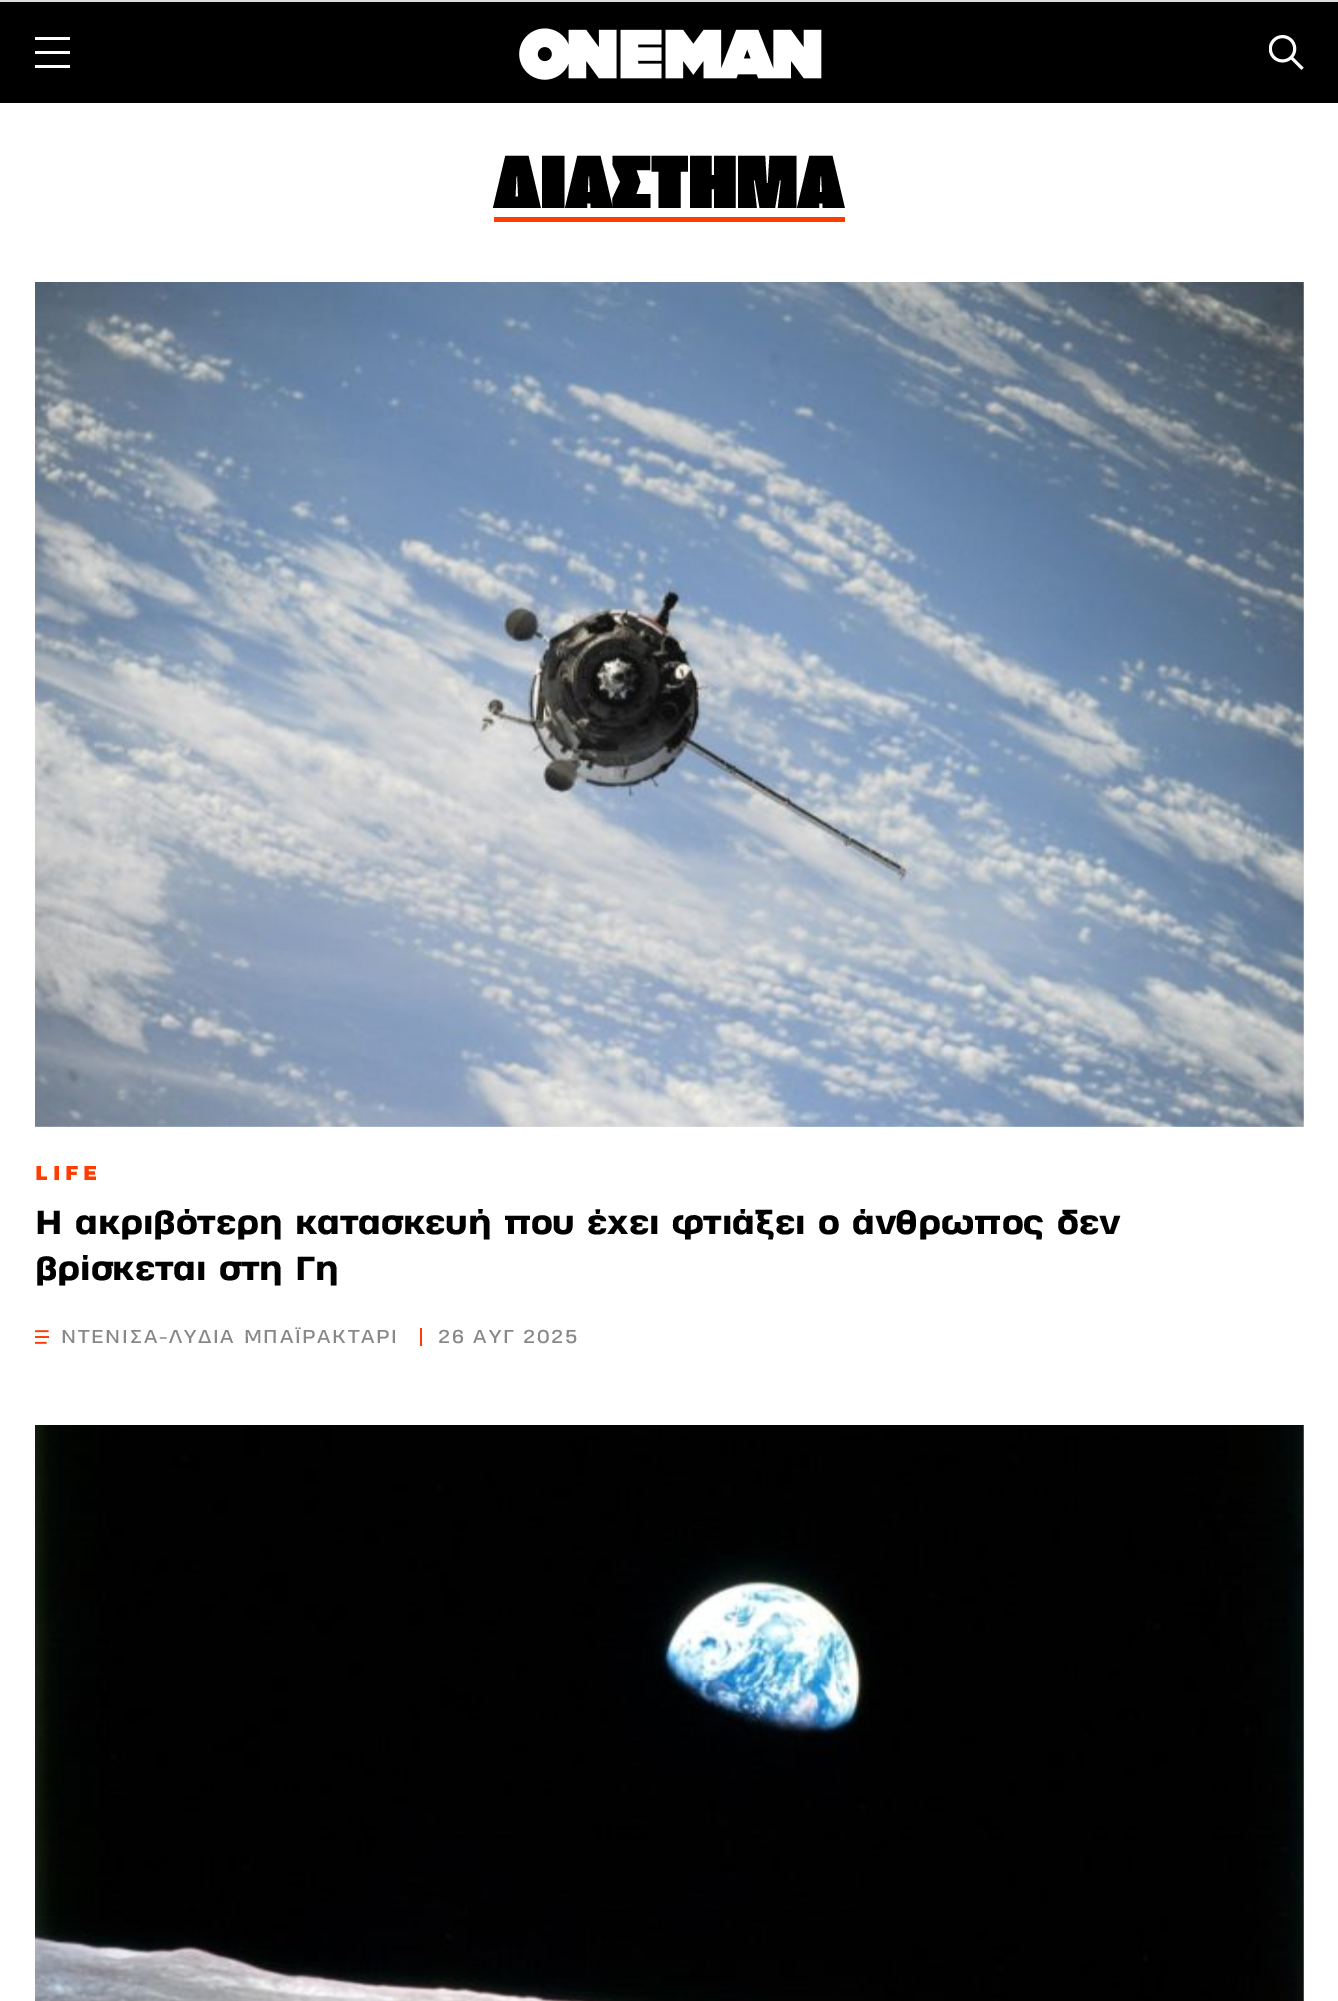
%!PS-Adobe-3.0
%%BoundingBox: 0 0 1338 2001
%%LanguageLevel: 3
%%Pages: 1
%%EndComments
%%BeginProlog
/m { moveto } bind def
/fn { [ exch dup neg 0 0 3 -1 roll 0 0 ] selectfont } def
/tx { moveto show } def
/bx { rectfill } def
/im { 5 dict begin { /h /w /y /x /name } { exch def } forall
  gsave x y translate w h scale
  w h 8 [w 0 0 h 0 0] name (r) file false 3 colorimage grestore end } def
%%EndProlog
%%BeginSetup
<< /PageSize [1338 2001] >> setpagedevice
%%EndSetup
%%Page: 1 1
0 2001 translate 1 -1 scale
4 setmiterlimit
1 setgray
0 0 1338 2001 bx
0 setgray
0 2 1338 101 bx
0.867 setgray
0 0 1338 2 bx
1 setgray
35 65 35 3 bx
35 51 35 3 bx
35 37 35 3 bx
(image0.raw) 519 28 303 52 im
(image1.raw) 1269 35 35 35 im
/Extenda-SemiBold 78.75 fn
0 setgray
(ΔΙΑΣΤΗΜΑ) 493 208 tx
1 0.239 0 setrgbcolor
494 217 351 5 bx
0.957 setgray
35 282 1269 845 bx
(image2.raw) 35 282 1269 845 im
/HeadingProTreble-Black 19 fn
1 0.239 0 setrgbcolor
35 1180 m 5 0 (LIFE) ashow
/HeadingProTreble-ExtraBold 31.5 fn
0 setgray
(Η ακριβότερη κατασκευή που έχει φτιάξει ο άνθρωπος δεν) 35 1234 tx
(βρίσκεται στη Γη) 35 1280 tx
(image3.raw) 35 1330 14 14 im
/HeadingProTreble-Regular 17.5 fn
0.533 setgray
61 1343 m 1.75 0 (ΝΤΕΝΙΣΑ-ΛΥΔΙΑ ΜΠΑΪΡΑΚΤΑΡΙ) ashow
1 0.239 0 setrgbcolor
420 1328 2 18 bx
0.533 setgray
438 1343 m 1.75 0 (26 ΑΥΓ 2025) ashow
(image4.raw) 35 1425 1269 576 im
showpage
%%EOF
